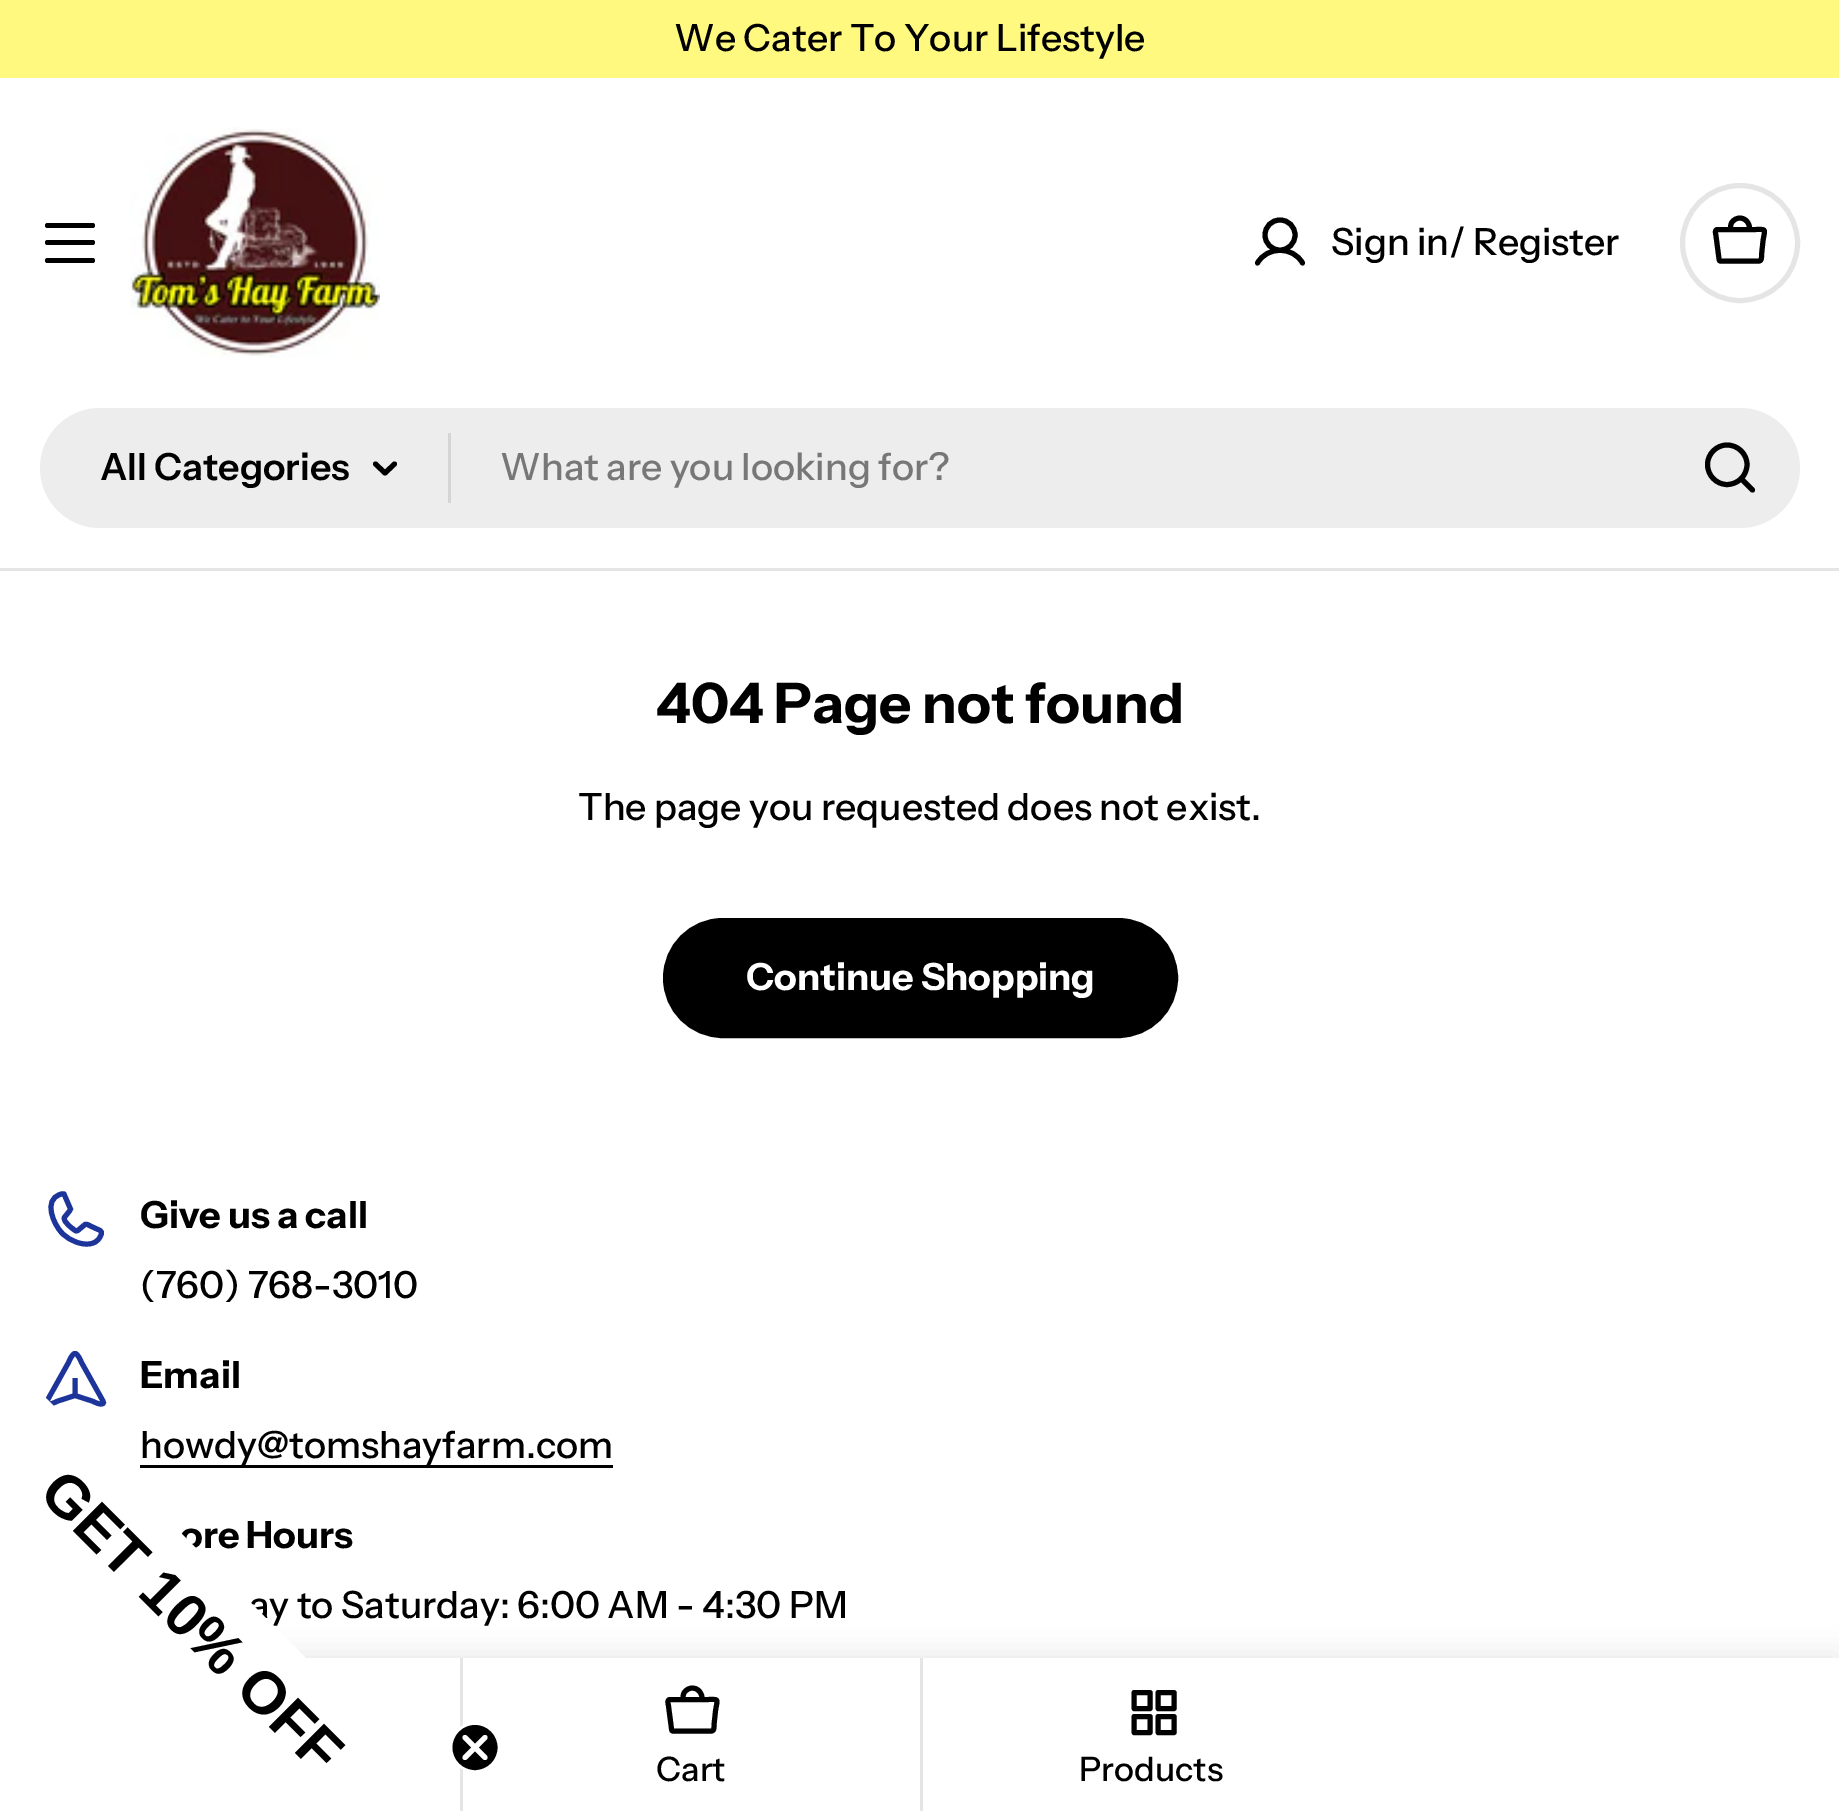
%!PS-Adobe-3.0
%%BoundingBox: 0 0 1839 1811
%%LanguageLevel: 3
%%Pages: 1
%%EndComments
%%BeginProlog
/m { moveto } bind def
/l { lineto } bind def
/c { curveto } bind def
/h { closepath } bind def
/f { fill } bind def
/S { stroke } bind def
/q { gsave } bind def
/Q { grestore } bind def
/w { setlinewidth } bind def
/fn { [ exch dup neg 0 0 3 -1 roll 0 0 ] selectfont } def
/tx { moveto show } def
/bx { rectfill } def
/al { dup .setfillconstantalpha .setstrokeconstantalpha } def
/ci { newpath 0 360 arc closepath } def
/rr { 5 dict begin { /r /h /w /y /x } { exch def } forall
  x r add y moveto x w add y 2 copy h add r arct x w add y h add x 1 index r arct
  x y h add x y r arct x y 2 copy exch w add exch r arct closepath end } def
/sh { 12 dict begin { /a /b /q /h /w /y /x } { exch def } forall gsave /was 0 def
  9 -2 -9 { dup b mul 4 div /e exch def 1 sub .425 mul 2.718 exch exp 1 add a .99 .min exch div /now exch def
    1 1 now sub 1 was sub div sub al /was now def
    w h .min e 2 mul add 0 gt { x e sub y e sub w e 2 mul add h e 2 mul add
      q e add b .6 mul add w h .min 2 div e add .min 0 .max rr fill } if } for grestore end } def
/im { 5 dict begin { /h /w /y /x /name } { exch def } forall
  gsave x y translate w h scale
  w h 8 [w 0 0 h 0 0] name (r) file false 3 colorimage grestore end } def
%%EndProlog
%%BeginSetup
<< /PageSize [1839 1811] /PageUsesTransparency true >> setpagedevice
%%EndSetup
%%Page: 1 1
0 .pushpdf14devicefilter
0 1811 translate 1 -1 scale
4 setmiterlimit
1 setgray
0 0 1839 1811 bx
1 0.976 0.502 setrgbcolor
0 0 1839 78 bx
/InstrumentSans-Medium 37.5 fn
0 setgray
(We Cater To Your Lifestyle) 674 51 tx
45 240 50 5 2.5 rr f
45 223 50 5 2.5 rr f
45 258 50 5 2.5 rr f
(image0.raw) 130 127 250 231 im
5 w
1 setlinecap
1 setlinejoin
1280 250 m 1288.5 250 1295 243.5 1295 235 c 1295 226.5 1288.5 220 1280 220 c 1271.5 220 1265 226.5 1265 235 c 1265 243.5 1271.5 250 1280 250 c h 1257.5 263 m 1267 246 1293 246 1302.5 263 c S
(Sign in/ Register) 1331 255 tx
0.898 setgray
0 setlinecap
0 setlinejoin
1740 243 57.5 ci S
0 setgray
1 setlinecap
1 setlinejoin
1759 261 m 1727 261 l 1718.5 261 1719.5 263 1718.5 255 c 1716 236 l 1716 235 1714 229.5 1717.5 229.5 c 1755 229.5 l 1767 229.5 1765 228 1763 241 c 1761.5 255 l 1761.5 256 1762 261 1759 261 c h 1730.5 229.5 m 1730.5 227 1730.5 225 1731.5 223 c 1735.5 216 1745.5 216.5 1748.5 224 c 1749.5 225.5 1749.5 227.5 1749.5 229.5 c S
0.929 setgray
40 408 1760 120 60 rr f
/InstrumentSans-SemiBold 37.5 fn
0 setgray
(All Categories) 100 480 tx
394.5 464 m 385 473 l 375.5 464 l S
0.835 setgray
448 433 3 70 bx
/InstrumentSans-Medium 37.5 fn
0.467 setgray
(What are you looking for?) 500 480 tx
0 setgray
1727 484.5 m 1738 484.5 1747 475.5 1747 464.5 c 1747 454 1738 445 1727 445 c 1716.5 445 1707.5 454 1707.5 464.5 c 1707.5 475.5 1716.5 484.5 1727 484.5 c h 1741 478.5 m 1752.5 490 l S
0.898 setgray
0 568 1839 3 bx
/InstrumentSans-Bold 56 fn
0 setgray
(404 Page not found) 656 723 tx
/InstrumentSans-Medium 37.5 fn
(The page you requested does not exist.) 578 820 tx
664.5 919.5 512 117 58.5 rr q f Q
3 w
0 setlinecap
0 setlinejoin
S
/InstrumentSans-Bold 37.5 fn
1 setgray
(Continue Shopping) 746 990 tx
0.114 0.204 0.604 setrgbcolor
5 w
85 1224.5 m 87 1223.5 90 1226 91.5 1226.5 c 98 1229.5 l 102 1231 102.5 1232.5 100 1237 c 95.5 1245.5 85 1245 77.5 1242.5 c 71.5 1240.5 66 1237.5 62 1233 c 53.5 1224.5 43 1200 60 1194.5 c 61 1194 63 1193.5 64 1194 c 70.5 1209 l 69.5 1211 l 65.5 1216 l 63.5 1218 64 1218.5 65 1221 c 67 1224 69.5 1226.5 72.5 1228.5 c 75.5 1231 76.5 1232 79 1229.5 c h S
0 setgray
(Give us a call) 140 1228 tx
/InstrumentSans-Medium 37.5 fn
(\(760\) 768-3010) 140 1298 tx
0.114 0.204 0.604 setrgbcolor
75 1378 m 75 1395.5 l S
75 1395.5 m 92 1401 l 93.5 1401.5 100.5 1405.5 103 1403.5 c 103.5 1402.5 l 103 1401 l 81.5 1362.5 l 81 1361.5 78 1353.5 75 1353.5 c 72 1353.5 69 1361.5 68.5 1362.5 c 47 1401 l 46.5 1402.5 l 47 1403.5 l 49.5 1405.5 56.5 1401.5 58 1401 c h S
/InstrumentSans-Bold 37.5 fn
0 setgray
(Email) 140 1388 tx
140 1465 473 3 bx
/InstrumentSans-Medium 37.5 fn
(howdy@tomshayfarm.com) 140 1458 tx
/InstrumentSans-Bold 37.5 fn
(ore Hours) 180 1548 tx
/InstrumentSans-Medium 37.5 fn
(ay to Saturday: 6:00 AM - 4:30 PM) 249 1618 tx
-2 1653 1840 155 0 12.5 0.08 sh
1 setgray
306 1658 1533 153 bx
0.898 setgray
460 1658 3 153 bx
0 setgray
1 setlinecap
1 setlinejoin
711.5 1731 m 679.5 1731 l 671 1731 672 1733 671 1725 c 668.5 1706 l 668.5 1705 666.5 1699.5 670 1699.5 c 707.5 1699.5 l 719.5 1699.5 717.5 1698 715.5 1711 c 714 1725 l 714 1726 714.5 1731 711.5 1731 c h 683 1699.5 m 683 1697 683 1695 684 1693 c 688 1686 698 1686.5 701 1694 c 702 1695.5 702 1697.5 702 1699.5 c S
/InstrumentSans-Medium 33.75 fn
(Cart) 656 1781 tx
0.898 setgray
920 1658 3 153 bx
0 setgray
1150 1692.5 m 1134 1692.5 l 1134 1708.5 l 1150 1708.5 l h 1174 1692.5 m 1158 1692.5 l 1158 1708.5 l 1174 1708.5 l h 1150 1716.5 m 1134 1716.5 l 1134 1732.5 l 1150 1732.5 l h 1174 1716.5 m 1158 1716.5 l 1158 1732.5 l 1174 1732.5 l h S
(Products) 1079 1781 tx
1 setgray
0 1352 m 460 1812 l 0 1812 l h f
/LiberationSans-Bold 60 fn
0 setgray
q 37 1495 translate 45 rotate 0 0 m (GET 10% OFF) show Q
475 1747.5 24 ci q f Q
1 setgray
2.5 w
0 setlinecap
0 setlinejoin
S
5 w
1 setlinecap
1 setlinejoin
465 1737.5 m 485 1757.5 l 465 1757.5 m 485 1737.5 l h S
.poppdf14devicefilter showpage
%%EOF
